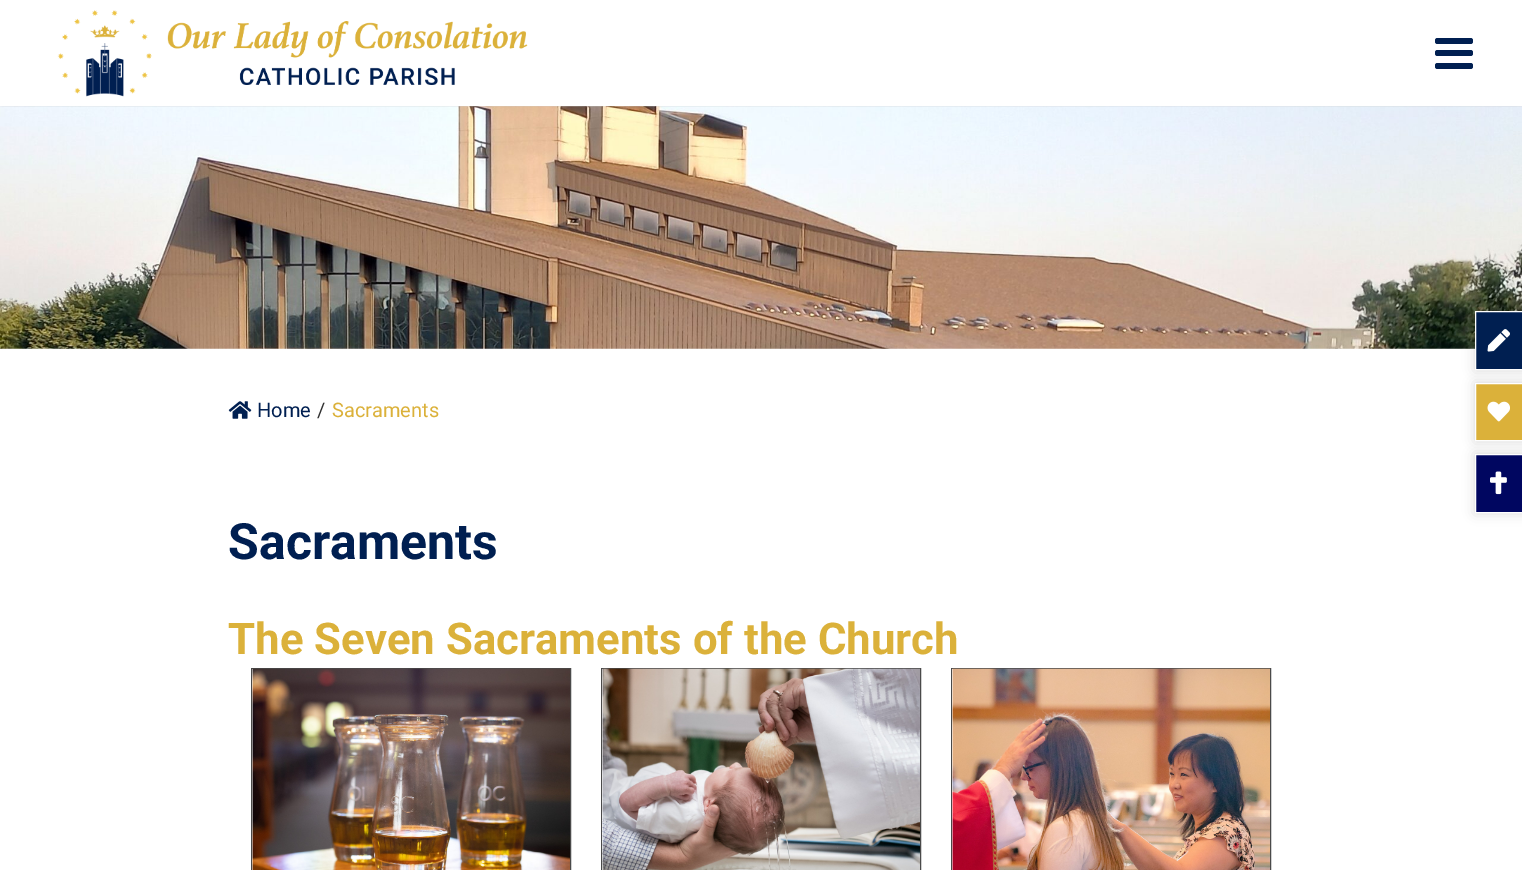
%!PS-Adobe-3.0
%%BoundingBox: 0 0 1522 870
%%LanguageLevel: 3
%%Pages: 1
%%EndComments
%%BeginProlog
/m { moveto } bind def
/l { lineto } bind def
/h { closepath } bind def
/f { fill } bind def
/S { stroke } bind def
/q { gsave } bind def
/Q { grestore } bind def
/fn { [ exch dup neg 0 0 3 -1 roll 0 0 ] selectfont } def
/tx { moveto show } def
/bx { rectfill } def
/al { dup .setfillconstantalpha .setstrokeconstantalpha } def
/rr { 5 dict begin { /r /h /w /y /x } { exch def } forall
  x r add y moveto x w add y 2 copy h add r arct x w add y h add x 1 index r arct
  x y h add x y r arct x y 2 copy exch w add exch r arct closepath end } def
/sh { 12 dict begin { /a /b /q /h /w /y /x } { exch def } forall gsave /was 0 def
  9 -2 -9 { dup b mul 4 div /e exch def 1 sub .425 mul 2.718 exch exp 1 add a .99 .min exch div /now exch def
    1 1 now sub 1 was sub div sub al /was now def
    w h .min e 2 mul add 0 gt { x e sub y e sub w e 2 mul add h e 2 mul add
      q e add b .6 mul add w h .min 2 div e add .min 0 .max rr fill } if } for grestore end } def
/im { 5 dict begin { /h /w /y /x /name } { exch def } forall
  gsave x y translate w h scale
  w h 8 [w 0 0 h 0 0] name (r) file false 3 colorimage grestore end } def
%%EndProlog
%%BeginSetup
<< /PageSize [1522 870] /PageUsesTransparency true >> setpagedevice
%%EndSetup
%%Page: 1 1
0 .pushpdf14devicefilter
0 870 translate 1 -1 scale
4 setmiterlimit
1 setgray
0 0 1522 870 bx
q
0 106 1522 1 rectclip
0 setgray
0 3 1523 106 0 2 0.16 sh
0 4 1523 106 0 4 0.16 sh
Q
(image0.raw) 57 10 471 87 im
0 0.122 0.318 setrgbcolor
1435 38 38 6 2.5 rr f
1435 50 38 6 2.5 rr f
1435 63 38 6 2.5 rr f
(image4.raw) 0 106 1522 243 im
0 setgray
1475 311 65 59 0 6 0.16 sh
0 0.122 0.318 setrgbcolor
1475.5 311.5 m 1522.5 311.5 l 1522.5 369.5 l 1475.5 369.5 l h q f Q
1 setgray
S
(image1.raw) 1487 329 23 23 im
0 setgray
1475 383 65 58 0 6 0.16 sh
0.859 0.694 0.227 setrgbcolor
1475.5 383.5 m 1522.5 383.5 l 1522.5 440.5 l 1475.5 440.5 l h q f Q
1 setgray
S
(image2.raw) 1487 401 23 21 im
0 setgray
1475 454 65 59 0 6 0.16 sh
0 0.024 0.376 setrgbcolor
1475.5 454.5 m 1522.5 454.5 l 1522.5 512.5 l 1475.5 512.5 l h q f Q
1 setgray
S
(image3.raw) 1490 471 17 24 im
(image5.raw) 228 401 24 18 im
/Roboto-Regular 20 fn
0 0.122 0.318 setrgbcolor
(Home) 257 417 tx
0.192 setgray
(/) 317 417 tx
0.859 0.694 0.227 setrgbcolor
(Sacraments) 332 417 tx
/Roboto-Bold 50 fn
0 0.122 0.318 setrgbcolor
(Sacraments) 228 559 tx
/Roboto-Bold 43.75 fn
0.859 0.694 0.227 setrgbcolor
(The Seven Sacraments of the Church) 228 654 tx
0.29 setgray
251.5 668.5 319 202 rectstroke
(image6.raw) 252 668 318 202 im
601.5 668.5 319 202 rectstroke
(image7.raw) 602 668 318 202 im
951.5 668.5 319 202 rectstroke
(image8.raw) 952 668 318 202 im
.poppdf14devicefilter showpage
%%EOF
